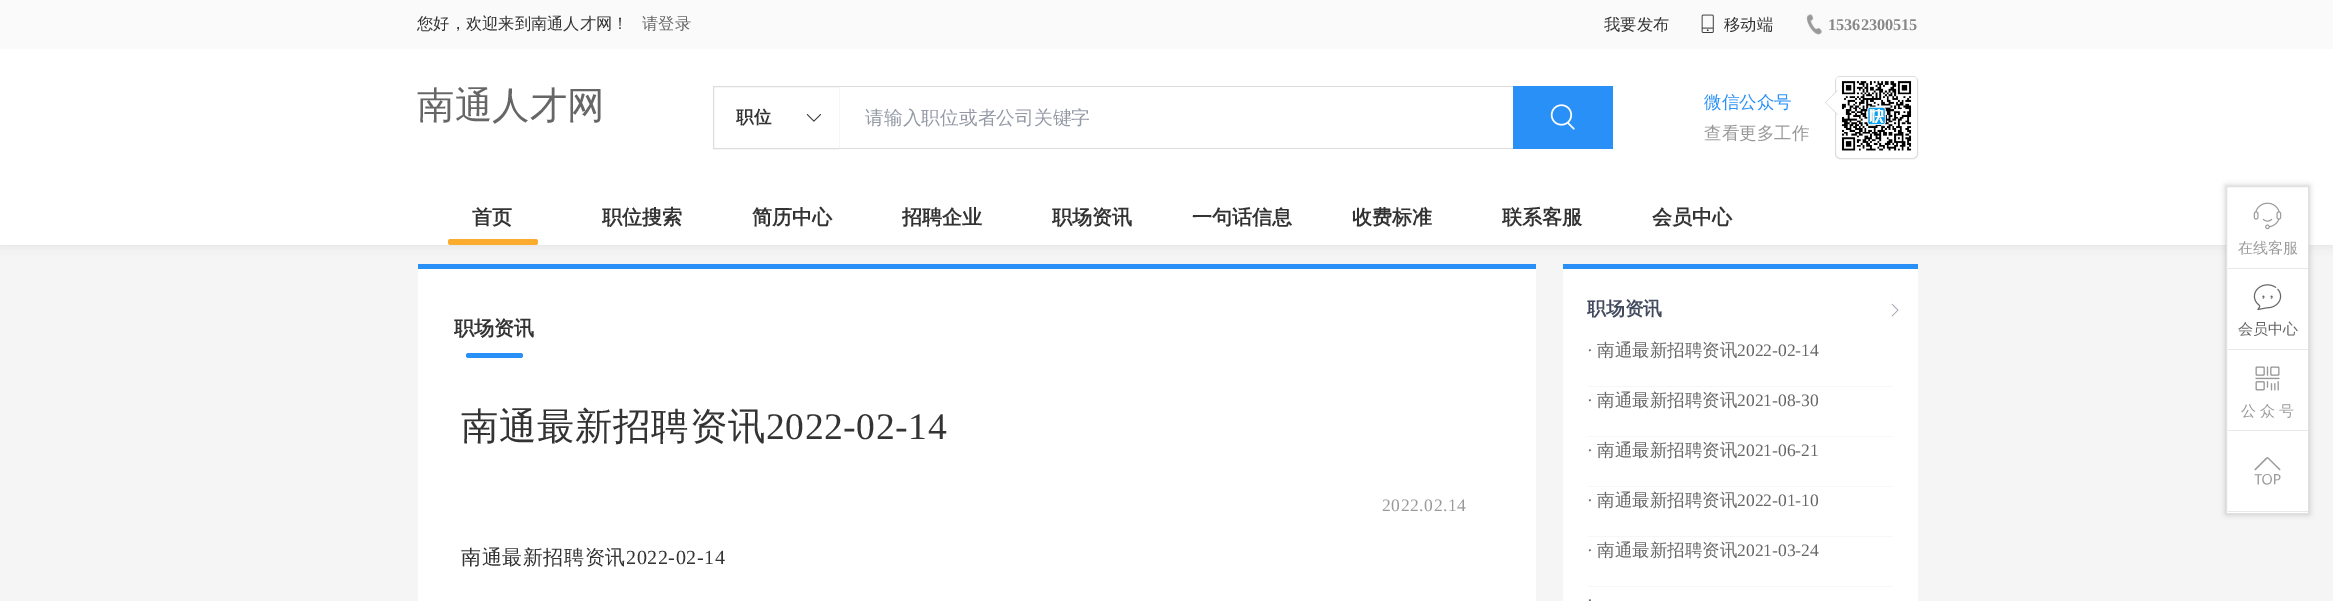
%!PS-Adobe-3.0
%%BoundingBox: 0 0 2333 601
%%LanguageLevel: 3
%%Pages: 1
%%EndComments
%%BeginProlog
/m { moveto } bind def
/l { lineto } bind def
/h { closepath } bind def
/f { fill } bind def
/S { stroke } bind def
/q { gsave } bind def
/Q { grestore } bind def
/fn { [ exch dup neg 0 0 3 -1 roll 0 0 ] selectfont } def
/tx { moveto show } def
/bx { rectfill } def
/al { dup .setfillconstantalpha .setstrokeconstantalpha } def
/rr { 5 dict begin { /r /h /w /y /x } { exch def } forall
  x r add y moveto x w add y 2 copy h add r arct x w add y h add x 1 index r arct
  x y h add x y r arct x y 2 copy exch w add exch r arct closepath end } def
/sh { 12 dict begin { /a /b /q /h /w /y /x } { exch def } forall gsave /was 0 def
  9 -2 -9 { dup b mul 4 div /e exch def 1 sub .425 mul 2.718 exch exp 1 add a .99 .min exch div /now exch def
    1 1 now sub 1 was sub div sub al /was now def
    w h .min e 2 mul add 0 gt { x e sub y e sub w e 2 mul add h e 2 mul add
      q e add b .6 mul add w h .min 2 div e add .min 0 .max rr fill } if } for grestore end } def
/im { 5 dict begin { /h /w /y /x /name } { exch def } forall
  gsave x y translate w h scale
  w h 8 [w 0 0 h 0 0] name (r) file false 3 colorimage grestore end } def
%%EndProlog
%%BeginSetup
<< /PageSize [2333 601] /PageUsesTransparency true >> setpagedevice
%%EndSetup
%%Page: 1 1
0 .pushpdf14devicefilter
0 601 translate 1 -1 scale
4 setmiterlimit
0.961 setgray
0 0 2333 601 bx
0.867 setgray
0 0 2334 245 0 5 1 sh
1 setgray
0 49 2333 196 bx
0.98 setgray
0 0 2333 49 bx
/WenQuanYiZenHei-Medium 16.25 fn
0.2 setgray
(您好，欢迎来到南通人才网！) 417 29 tx
0.4 setgray
(请登录) 642 29 tx
0.2 setgray
(我要发布) 1604 30 tx
(image0.raw) 1701 14 13 19 im
(移动端) 1724 30 tx
(image1.raw) 1806 14 16 21 im
/LiberationSerif-Bold 16.25 fn
0.533 setgray
(15362300515) 1828 30 tx
/WenQuanYiZenHei-Medium 37.5 fn
0.4 setgray
(南通人才网) 417 118 tx
0.867 setgray
713.5 86.5 125 62 rectstroke
/WenQuanYiZenHei-Bold 17.5 fn
0.2 setgray
(职位) 736 123 tx
(image2.raw) 806 114 16 8 im
1 setgray
838 87 1 61 bx
0.867 setgray
838 86 675 1 bx
838 148 675 1 bx
/WenQuanYiZenHei-Medium 18.75 fn
0.576 0.6 0.647 setrgbcolor
(请输入职位或者公司关键字) 865 124 tx
0.161 0.565 0.969 setrgbcolor
1513 86 100 63 bx
(image3.raw) 1550 104 25 26 im
/WenQuanYiZenHei-Medium 17.5 fn
(微信公众号) 1704 108 tx
0.6 setgray
(查看更多工作) 1704 139 tx
0.867 setgray
1835.5 76.5 82 82 4.5 rr S
(image4.raw) 1836 77 81 74 im
1837.5 90 m 1837.5 115 l 1825 102.5 l h f
1 setgray
1839 90 m 1839 115 l 1826 102.5 l h f
/WenQuanYiZenHei-Bold 20 fn
0.2 setgray
(首页) 472 224 tx
0.984 0.671 0.176 setrgbcolor
448 239 90 6 2.5 rr f
0.2 setgray
(职位搜索) 602 224 tx
(简历中心) 752 224 tx
(招聘企业) 902 224 tx
(职场资讯) 1052 224 tx
(一句话信息) 1192 224 tx
(收费标准) 1352 224 tx
(联系客服) 1502 224 tx
(会员中心) 1652 224 tx
0.431 setgray
2226 186 83 328 0 3 0.4 sh
1 setgray
2226.5 186.5 m 2308.5 186.5 l 2308.5 513.5 l 2226.5 513.5 l h q f Q
0.878 0.882 0.898 setrgbcolor
S
0.91 setgray
2228 268 80 1 bx
(image5.raw) 2253 202 29 28 im
/WenQuanYiZenHei-Medium 15 fn
0.6 setgray
(在线客服) 2238 253 tx
0.91 setgray
2228 349 80 1 bx
(image6.raw) 2253 284 29 27 im
0.4 setgray
(会员中心) 2238 334 tx
0.91 setgray
2228 430 80 1 bx
(image7.raw) 2255 366 25 25 im
0.6 setgray
(公) 2241 416 tx
(众) 2260 416 tx
(号) 2279 416 tx
0.91 setgray
2228 511 80 1 bx
(image8.raw) 2254 457 27 28 im
0.161 0.565 0.969 setrgbcolor
418 264 1118 5 bx
1 setgray
418 269 1118 332 bx
/WenQuanYiZenHei-Bold 20 fn
0.2 setgray
(职场资讯) 454 335 tx
0.161 0.565 0.969 setrgbcolor
466 353 57 5 2.5 rr f
/WenQuanYiZenHei-Medium 37.5 fn
0.2 setgray
461 439 m 0.6 0 (南通最新招聘资讯) ashow
/LiberationSerif-Regular 37.5 fn
766 439 m 0.6 0 (2022-02-14) ashow
/LiberationSerif-Regular 17.5 fn
0.6 setgray
1382 511 m 0.6 0 (2022.02.14) ashow
/WenQuanYiZenHei-Medium 20 fn
0.2 setgray
461 564 m 0.6 0 (南通最新招聘资讯) ashow
/LiberationSerif-Regular 20 fn
626 564 m 0.6 0 (2022-02-14) ashow
0.161 0.565 0.969 setrgbcolor
1563 264 355 5 bx
1 setgray
1563 269 355 332 bx
/WenQuanYiZenHei-Bold 18.75 fn
0.259 0.29 0.369 setrgbcolor
(职场资讯) 1587 315 tx
(image9.raw) 1891 303 8 14 im
0.961 0.969 0.976 setrgbcolor
1588 386 305 1 bx
/LiberationSerif-Regular 17.5 fn
0.4 setgray
(·) 1587 356 tx
/WenQuanYiZenHei-Medium 17.5 fn
(南通最新招聘资讯) 1597 356 tx
/LiberationSerif-Regular 17.5 fn
(2022-02-14) 1737 356 tx
0.961 0.969 0.976 setrgbcolor
1588 436 305 1 bx
0.4 setgray
(·) 1587 406 tx
/WenQuanYiZenHei-Medium 17.5 fn
(南通最新招聘资讯) 1597 406 tx
/LiberationSerif-Regular 17.5 fn
(2021-08-30) 1737 406 tx
0.961 0.969 0.976 setrgbcolor
1588 486 305 1 bx
0.4 setgray
(·) 1587 456 tx
/WenQuanYiZenHei-Medium 17.5 fn
(南通最新招聘资讯) 1597 456 tx
/LiberationSerif-Regular 17.5 fn
(2021-06-21) 1737 456 tx
0.961 0.969 0.976 setrgbcolor
1588 536 305 1 bx
0.4 setgray
(·) 1587 506 tx
/WenQuanYiZenHei-Medium 17.5 fn
(南通最新招聘资讯) 1597 506 tx
/LiberationSerif-Regular 17.5 fn
(2022-01-10) 1737 506 tx
0.961 0.969 0.976 setrgbcolor
1588 586 305 1 bx
0.4 setgray
(·) 1587 556 tx
/WenQuanYiZenHei-Medium 17.5 fn
(南通最新招聘资讯) 1597 556 tx
/LiberationSerif-Regular 17.5 fn
(2021-03-24) 1737 556 tx
(·) 1587 606 tx
.poppdf14devicefilter showpage
%%EOF
